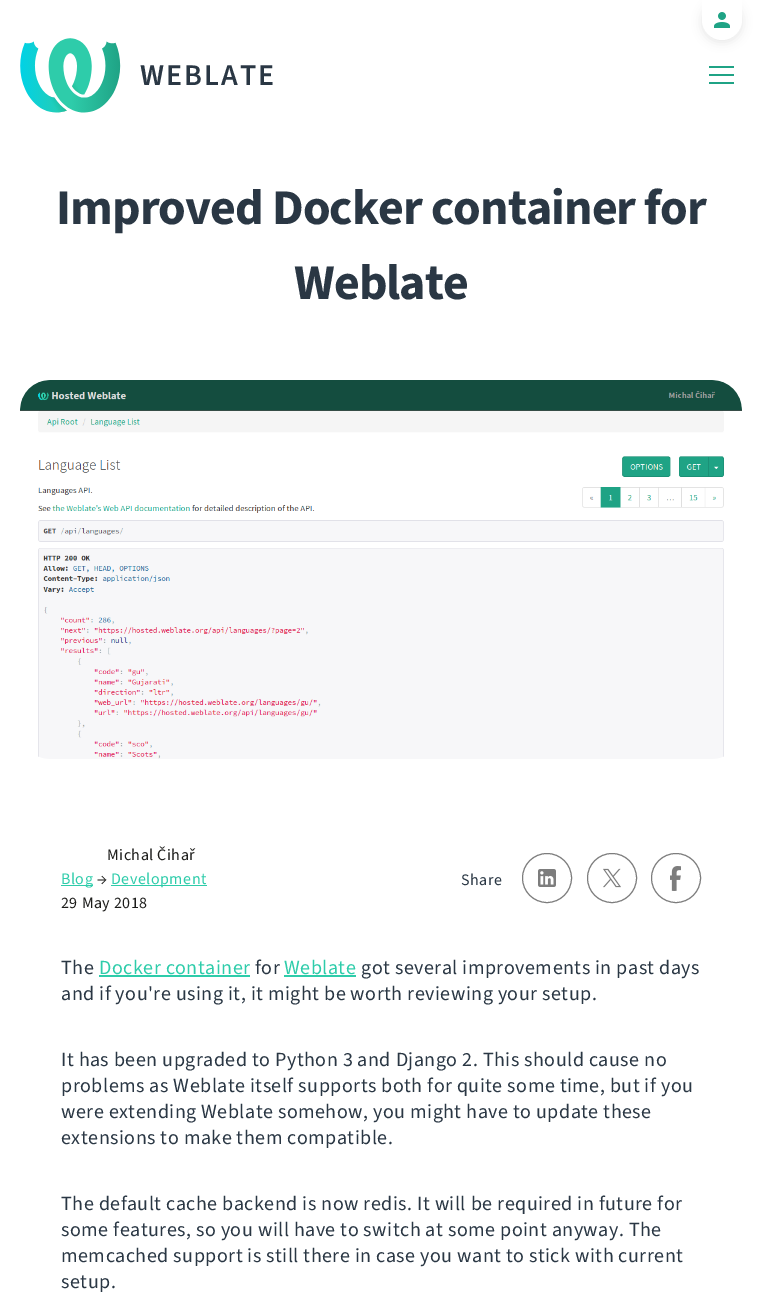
%!PS-Adobe-3.0
%%BoundingBox: 0 0 762 1299
%%LanguageLevel: 3
%%Pages: 1
%%EndComments
%%BeginProlog
/m { moveto } bind def
/l { lineto } bind def
/c { curveto } bind def
/h { closepath } bind def
/f { fill } bind def
/S { stroke } bind def
/fn { [ exch dup neg 0 0 3 -1 roll 0 0 ] selectfont } def
/bx { rectfill } def
/al { dup .setfillconstantalpha .setstrokeconstantalpha } def
/ci { newpath 0 360 arc closepath } def
/rr { 5 dict begin { /r /h /w /y /x } { exch def } forall
  x r add y moveto x w add y 2 copy h add r arct x w add y h add x 1 index r arct
  x y h add x y r arct x y 2 copy exch w add exch r arct closepath end } def
/sh { 12 dict begin { /a /b /q /h /w /y /x } { exch def } forall gsave /was 0 def
  9 -2 -9 { dup b mul 4 div /e exch def 1 sub .425 mul 2.718 exch exp 1 add a .99 .min exch div /now exch def
    1 1 now sub 1 was sub div sub al /was now def
    w h .min e 2 mul add 0 gt { x e sub y e sub w e 2 mul add h e 2 mul add
      q e add b .6 mul add w h .min 2 div e add .min 0 .max rr fill } if } for grestore end } def
/im { 5 dict begin { /h /w /y /x /name } { exch def } forall
  gsave x y translate w h scale
  w h 8 [w 0 0 h 0 0] name (r) file false 3 colorimage grestore end } def
%%EndProlog
%%BeginSetup
<< /PageSize [762 1299] /PageUsesTransparency true >> setpagedevice
%%EndSetup
%%Page: 1 1
0 .pushpdf14devicefilter
0 1299 translate 1 -1 scale
4 setmiterlimit
1 setgray
0 0 762 1299 bx
0 setgray
702 2 40 40 20 5 0.1 sh
1 setgray
702 0 m 742 0 l 742 20 l 742 31 733 40 722 40 c 711 40 702 31 702 20 c h f
(image0.raw) 714 12 16 16 im
(image1.raw) 20 38 101 75 im
/SourceSans3-SemiBold 30 fn
0.165 0.216 0.267 setrgbcolor
140 85 m 2 0 (WEBLATE) ashow
0.122 0.639 0.522 setrgbcolor
709 66 25 2 bx
709 74 25 2 bx
709 82 25 2 bx
/SourceSans3-Bold 50 fn
0.165 0.216 0.267 setrgbcolor
56 224 m -1 0 (Improved Docker container for) ashow
294 299 m -1 0 (Weblate) ashow
(image2.raw) 20 380 722 379 im
/SourceSans3-Regular 16 fn
0.114 0.114 0.106 setrgbcolor
107 860 m 0.5 0 (Michal Čihař) ashow
0.18 0.8 0.667 setrgbcolor
61 885 32 1 bx
61 884 m 0.5 0 (Blog) ashow
0.114 0.114 0.106 setrgbcolor
97 884 m 0.5 0 (→) ashow
0.18 0.8 0.667 setrgbcolor
111 885 96 1 bx
111 884 m 0.5 0 (Development) ashow
0.114 0.114 0.106 setrgbcolor
61 908 m 0.5 0 (29 May 2018) ashow
0.165 0.216 0.267 setrgbcolor
461 885 m 0.5 0 (Share) ashow
(image3.raw) 538 869 18 18 im
0.49 setgray
547 878 24.5 ci S
(image4.raw) 603 868 18 20 im
612 878 24.5 ci S
(image5.raw) 670 866 11 25 im
676 878 24.5 ci S
/SourceSans3-Regular 20 fn
0.165 0.216 0.267 setrgbcolor
61 974 m 0.5 0 (The) ashow
0.18 0.8 0.667 setrgbcolor
99 974 m 0.5 0 (Docker container) ashow
99 975 151 2 bx
0.165 0.216 0.267 setrgbcolor
255 974 m 0.5 0 (for) ashow
0.18 0.8 0.667 setrgbcolor
284 974 m 0.5 0 (Weblate) ashow
284 975 72 2 bx
0.165 0.216 0.267 setrgbcolor
361 974 m 0.5 0 (got several improvements in past days) ashow
61 1000 m 0.5 0 (and if you're using it, it might be worth reviewing your setup.) ashow
61 1066 m 0.5 0 (It has been upgraded to Python 3 and Django 2. This should cause no) ashow
61 1092 m 0.5 0 (problems as Weblate itself supports both for quite some time, but if you) ashow
61 1118 m 0.5 0 (were extending Weblate somehow, you might have to update these) ashow
61 1144 m 0.5 0 (extensions to make them compatible.) ashow
61 1210 m 0.5 0 (The default cache backend is now redis. It will be required in future for) ashow
61 1236 m 0.5 0 (some features, so you will have to switch at some point anyway. The) ashow
61 1262 m 0.5 0 (memcached support is still there in case you want to stick with current) ashow
61 1288 m 0.5 0 (setup.) ashow
.poppdf14devicefilter showpage
%%EOF
